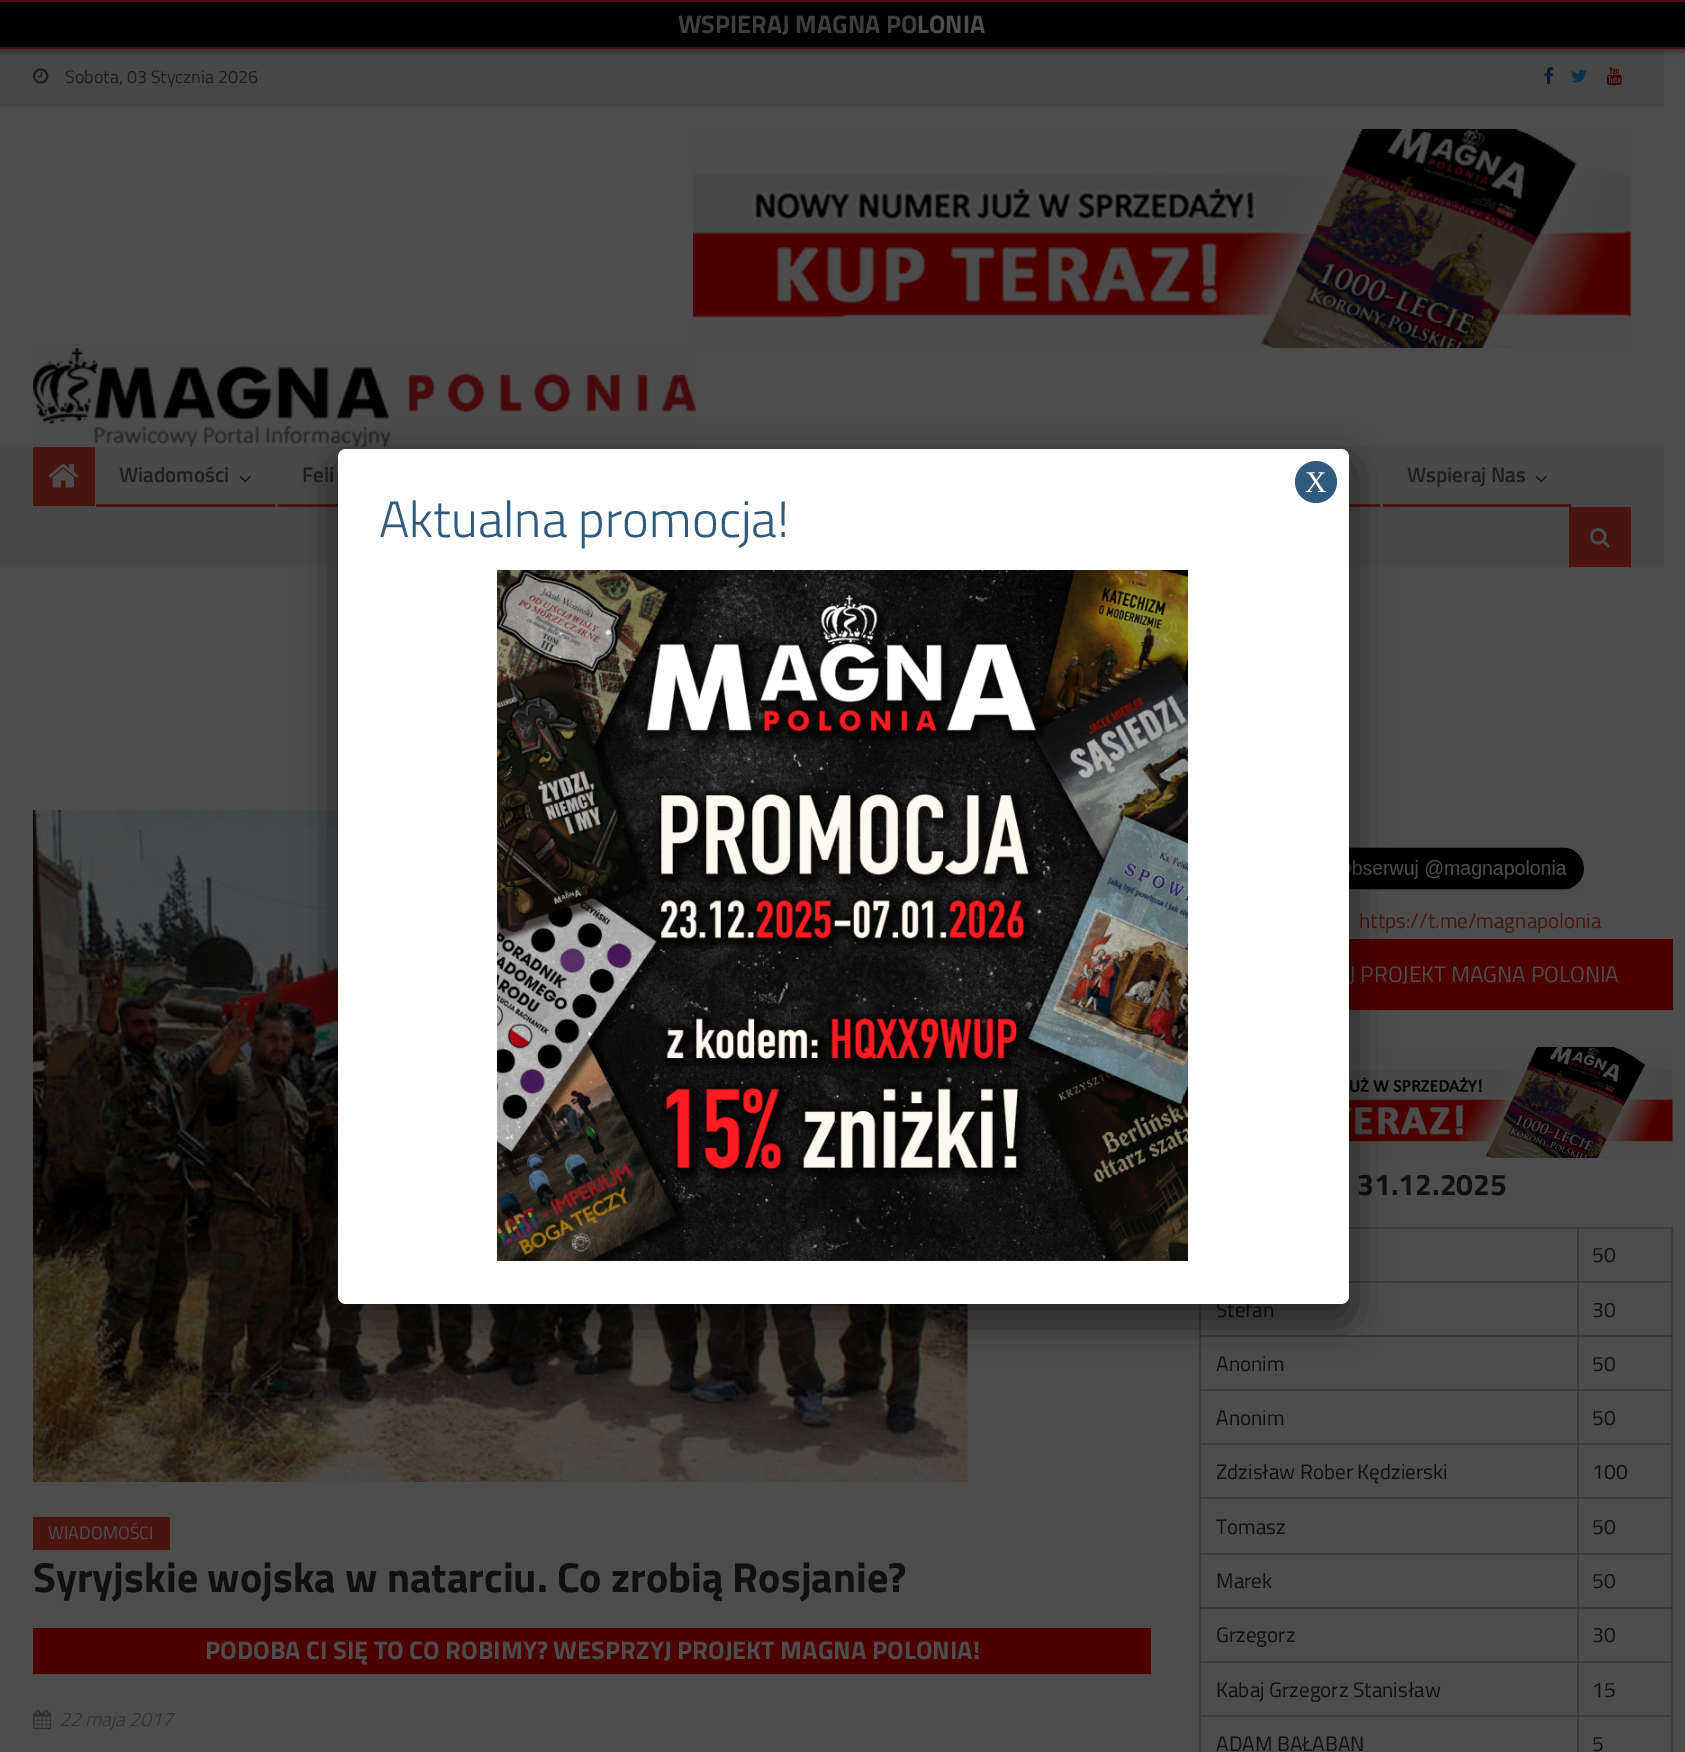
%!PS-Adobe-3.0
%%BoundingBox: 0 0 1685 1752
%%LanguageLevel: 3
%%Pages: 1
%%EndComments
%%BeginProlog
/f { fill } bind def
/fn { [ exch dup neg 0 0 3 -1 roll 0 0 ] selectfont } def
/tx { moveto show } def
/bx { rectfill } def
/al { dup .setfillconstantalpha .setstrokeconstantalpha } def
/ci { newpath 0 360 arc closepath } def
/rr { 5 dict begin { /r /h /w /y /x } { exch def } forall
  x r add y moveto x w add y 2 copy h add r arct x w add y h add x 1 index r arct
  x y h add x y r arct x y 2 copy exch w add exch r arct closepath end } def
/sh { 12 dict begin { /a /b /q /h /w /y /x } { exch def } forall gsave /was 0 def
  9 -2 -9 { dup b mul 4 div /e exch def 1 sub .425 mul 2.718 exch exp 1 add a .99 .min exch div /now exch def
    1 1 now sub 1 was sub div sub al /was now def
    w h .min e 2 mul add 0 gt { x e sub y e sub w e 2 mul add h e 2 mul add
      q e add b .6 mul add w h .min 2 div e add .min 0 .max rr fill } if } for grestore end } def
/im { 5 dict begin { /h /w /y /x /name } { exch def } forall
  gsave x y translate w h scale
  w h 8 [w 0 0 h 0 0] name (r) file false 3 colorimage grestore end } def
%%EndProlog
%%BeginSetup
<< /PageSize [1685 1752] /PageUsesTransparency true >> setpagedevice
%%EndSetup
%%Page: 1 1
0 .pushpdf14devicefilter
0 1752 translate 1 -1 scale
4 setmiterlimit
0.302 setgray
0 0 1685 1752 bx
0.278 setgray
0 49 1664 58 bx
0 setgray
0 5 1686 48 0 2 0.25 sh
0 2 1685 45 bx
0.29 0.078 0.067 setrgbcolor
0 0 1685 2 bx
0 47 1685 2 bx
/TitilliumWeb-Bold 25.25 fn
0.239 setgray
(WSPIERAJ MAGNA PO) 678 33 tx
0.302 setgray
(LONIA) 917 33 tx
(image0.raw) 33 68 16 16 im
/TitilliumWeb-Regular 18 fn
0.122 0.118 0.118 setrgbcolor
(Sobota, 03 Stycznia 2026) 65 83 tx
(image1.raw) 1544 67 10 17 im
(image2.raw) 1571 69 16 14 im
(image3.raw) 1606 67 16 19 im
(image4.raw) 693 129 938 219 im
(image5.raw) 33 348 663 99 im
0.286 setgray
0 447 1664 120 bx
0.29 0.078 0.067 setrgbcolor
33 447 62 59 bx
(image6.raw) 48 463 31 25 im
96 504 179 3 bx
/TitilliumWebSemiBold-SemiBold 21 fn
0.122 0.118 0.118 setrgbcolor
(Wiadomości) 119 482 tx
(image7.raw) 239 475 12 8 im
0.29 0.078 0.067 setrgbcolor
278 504 60 3 bx
0.122 0.118 0.118 setrgbcolor
(Feli) 302 482 tx
0.29 0.078 0.067 setrgbcolor
1383 504 188 3 bx
0.122 0.118 0.118 setrgbcolor
(Wspieraj Nas) 1407 482 tx
(image7.raw) 1535 475 12 8 im
0.29 0.078 0.067 setrgbcolor
1349 504 31 3 bx
1569 507 62 60 bx
(image8.raw) 1590 528 20 20 im
(image9.raw) 33 810 935 672 im
33 1517 137 33 bx
/TitilliumWeb-Regular 18 fn
0.302 setgray
(WIADOMOŚCI) 48 1539 tx
/TitilliumWeb-Bold 42 fn
0.063 setgray
(Syryjskie wojska w natarciu. Co zrobią Rosjanie?) 33 1592 tx
0.302 0 0 setrgbcolor
33 1628 1118 46 bx
/TitilliumWeb-Bold 25.5 fn
0.302 setgray
(PODOBA CI SIĘ TO CO ROBIMY? WESPRZYJ PROJEKT MAGNA POLONIA!) 205 1659 tx
(image10.raw) 33 1709 19 21 im
/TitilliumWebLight-LightItalic 19.5 fn
0.188 setgray
(22 maja 2017) 59 1726 tx
(image11.raw) 1349 847 235 43 im
/TitilliumWeb-Regular 21 fn
0.29 0.078 0.067 setrgbcolor
(https://t.me/magnapolonia) 1359 928 tx
0.302 0 0 setrgbcolor
1349 939 324 71 bx
/TitilliumWeb-Regular 22.5 fn
0.302 setgray
(J PROJEKT MAGNA POLONIA) 1349 982 tx
(image12.raw) 1349 1047 324 111 im
/TitilliumWeb-Bold 30 fn
0.063 setgray
(31.12.2025) 1357 1195 tx
0.239 setgray
1577 1227 96 2 bx
1577 1281 96 2 bx
1577 1335 96 2 bx
1577 1389 96 2 bx
1577 1443 96 2 bx
1577 1497 96 2 bx
1577 1553 96 2 bx
1577 1607 96 2 bx
1577 1661 96 2 bx
1577 1715 96 2 bx
1577 1715 2 37 bx
1199 1715 379 2 bx
1577 1661 2 55 bx
1199 1661 379 2 bx
1577 1607 2 55 bx
1199 1607 379 2 bx
1577 1553 2 55 bx
1199 1553 379 2 bx
1577 1497 2 57 bx
1199 1497 379 2 bx
1577 1443 2 56 bx
1199 1443 379 2 bx
1577 1389 2 56 bx
1199 1389 379 2 bx
1577 1335 2 56 bx
1199 1335 379 2 bx
1577 1281 2 56 bx
1349 1281 229 2 bx
1577 1227 2 56 bx
1349 1227 229 2 bx
1671 1715 2 37 bx
1671 1661 2 55 bx
1671 1607 2 55 bx
1671 1553 2 55 bx
1671 1497 2 57 bx
1671 1443 2 56 bx
1671 1389 2 56 bx
1671 1335 2 56 bx
1671 1281 2 56 bx
1671 1227 2 56 bx
/TitilliumWeb-Regular 21 fn
0.063 setgray
(50) 1592 1262 tx
(Stefan) 1216 1317 tx
(30) 1592 1317 tx
0.239 setgray
1199 1715 2 37 bx
1199 1661 2 55 bx
1199 1607 2 55 bx
1199 1553 2 55 bx
1199 1497 2 57 bx
1199 1443 2 56 bx
1199 1389 2 56 bx
1199 1304 2 87 bx
0.063 setgray
(Anonim) 1216 1371 tx
(50) 1592 1371 tx
(Anonim) 1216 1425 tx
(50) 1592 1425 tx
(Zdzisław Rober Kędzierski) 1216 1479 tx
(100) 1592 1479 tx
(Tomasz) 1216 1534 tx
(50) 1592 1534 tx
(Marek) 1216 1588 tx
(50) 1592 1588 tx
(Grzegorz) 1216 1642 tx
(30) 1592 1642 tx
(Kabaj Grzegorz Stanisław) 1216 1697 tx
(15) 1592 1697 tx
(ADAM BAŁABAN) 1216 1751 tx
(5) 1592 1751 tx
0.008 setgray
332 458 1023 867 14 19 0.5 sh
1 setgray
338 449 1011 855 8 rr f
0.192 0.357 0.486 setrgbcolor
1316 482 21 ci f
/LiberationSerif-Regular 30 fn
1 setgray
(X) 1305 492 tx
/TitilliumWebLight-Light 51 fn
0.192 0.357 0.486 setrgbcolor
(Aktualna promocja!) 379 537 tx
(image13.raw) 497 570 691 691 im
.poppdf14devicefilter showpage
%%EOF
